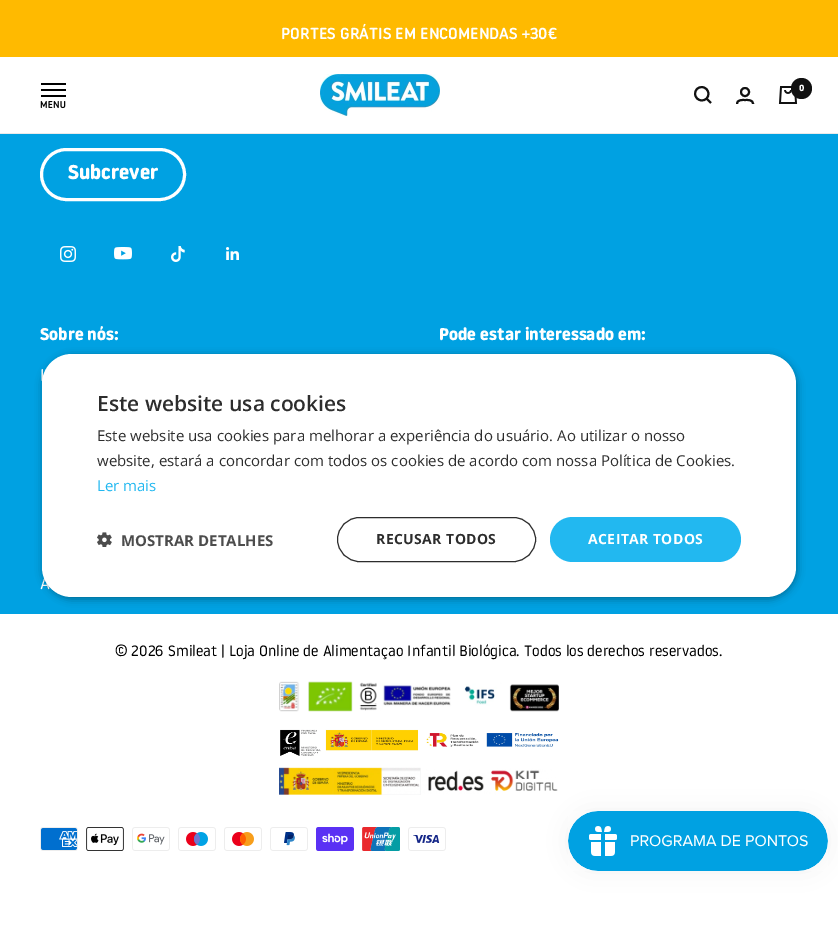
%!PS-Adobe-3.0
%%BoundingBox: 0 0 838 951
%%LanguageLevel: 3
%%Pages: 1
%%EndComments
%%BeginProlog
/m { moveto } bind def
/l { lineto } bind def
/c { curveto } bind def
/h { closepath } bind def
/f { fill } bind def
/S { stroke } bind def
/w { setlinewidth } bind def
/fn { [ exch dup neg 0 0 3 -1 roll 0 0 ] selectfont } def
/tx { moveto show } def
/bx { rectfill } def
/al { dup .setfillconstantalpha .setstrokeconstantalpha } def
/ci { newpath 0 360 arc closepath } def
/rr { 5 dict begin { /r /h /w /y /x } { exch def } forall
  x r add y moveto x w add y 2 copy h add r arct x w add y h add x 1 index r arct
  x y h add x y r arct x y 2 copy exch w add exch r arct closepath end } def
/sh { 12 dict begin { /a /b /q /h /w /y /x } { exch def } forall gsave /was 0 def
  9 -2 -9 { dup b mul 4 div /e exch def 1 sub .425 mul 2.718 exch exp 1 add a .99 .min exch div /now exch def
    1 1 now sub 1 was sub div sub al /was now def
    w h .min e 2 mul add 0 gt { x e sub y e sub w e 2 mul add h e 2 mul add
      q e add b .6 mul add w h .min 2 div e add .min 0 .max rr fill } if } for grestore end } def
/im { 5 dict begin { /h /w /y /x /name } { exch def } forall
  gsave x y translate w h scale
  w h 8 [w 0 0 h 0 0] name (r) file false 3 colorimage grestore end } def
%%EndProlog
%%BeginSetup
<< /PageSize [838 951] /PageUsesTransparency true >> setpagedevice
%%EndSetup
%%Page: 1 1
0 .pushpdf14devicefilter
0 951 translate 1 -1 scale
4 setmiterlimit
0 0.631 0.886 setrgbcolor
0 0 838 951 bx
1 0.729 0 setrgbcolor
0 0 838 57 bx
/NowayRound-Medium 16 fn
1 setgray
(PORTES GRÁTIS EM ENCOMENDAS +30€) 281 39 tx
0.918 setgray
0 133 838 1 bx
1 setgray
0 57 838 76 bx
(image0.raw) 40 83 26 26 im
(image1.raw) 320 74 120 42 im
0.067 setgray
2 w
706.5 98.5 m 712.5 92 703.5 83 697 89 c 691 95.5 700 104.5 706.5 98.5 c h 706.5 98.5 m 711 103 l S
745 92 4 ci S
737 104 m 737 99.5 742 100 745 100 c 748 100 753 99.5 753 104 c S
(image2.raw) 778 86 20 18 im
801.5 88.5 10.5 ci f
/NowayRound-Bold 9 fn
1 setgray
(0) 799 91 tx
3 w
41.5 149.5 143 50 25 rr S
/NowayRound-Bold 20 fn
(Subcrever) 68 179 tx
(image3.raw) 60 246 16 16 im
(image4.raw) 114 247 18 13 im
(image5.raw) 171 246 14 16 im
(image6.raw) 226 247 13 13 im
/NowayRound-Bold 17 fn
(Sobre nós:) 40 340 tx
/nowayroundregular-Regular 17 fn
(L) 40 381 tx
(A) 40 589 tx
/NowayRound-Bold 17 fn
(Pode estar interessado em:) 439 340 tx
0 614 838 337 bx
/nowayroundregular-Regular 15 fn
0 setgray
(© 2026 Smileat | Loja Online de Alimentaçao Infantil Biológica. Todos los derechos reservados.) 115 656 tx
(image7.raw) 279 681 280 31 im
(image8.raw) 280 729 279 27 im
(image9.raw) 279 767 279 28 im
(image10.raw) 40 827 38 24 im
(image11.raw) 86 827 38 24 im
(image12.raw) 132 827 38 24 im
(image13.raw) 178 827 38 24 im
(image14.raw) 224 827 38 24 im
(image15.raw) 270 827 38 24 im
(image16.raw) 316 827 38 24 im
(image17.raw) 362 827 38 24 im
(image18.raw) 408 827 38 24 im
43 356 754 243 30 4 0.35 sh
1 setgray
42 354 754 243 30 rr f
/OpenSans-SemiBold 21 fn
0.176 setgray
(Este website usa cookies) 97 411 tx
/OpenSans-Regular 15 fn
(Este website usa cookies para melhorar a experiência do usuário. Ao utilizar o nosso) 97 441 tx
(website, estará a concordar com todos os cookies de acordo com nossa Política de Cookies.) 97 466 tx
0.133 0.722 0.941 setrgbcolor
(Ler mais) 97 491 tx
(image19.raw) 97 532 15 15 im
/OpenSans-Bold 15 fn
0.302 setgray
(MOSTRAR DETALHES) 121 546 tx
0.176 setgray
1 w
337.5 517.5 198 44 22 rr S
/OpenSans-Bold 14 fn
376 544 m 0.4 0 (RECUSAR TODOS) ashow
0.133 0.722 0.941 setrgbcolor
550 517 191 45 22.5 rr f
1 setgray
588 544 m 0.4 0 (ACEITAR TODOS) ashow
0 setgray
568 811 260 60 30 12.5 0.05 sh
(image20.raw) 568 811 260 60 im
.poppdf14devicefilter showpage
%%EOF
